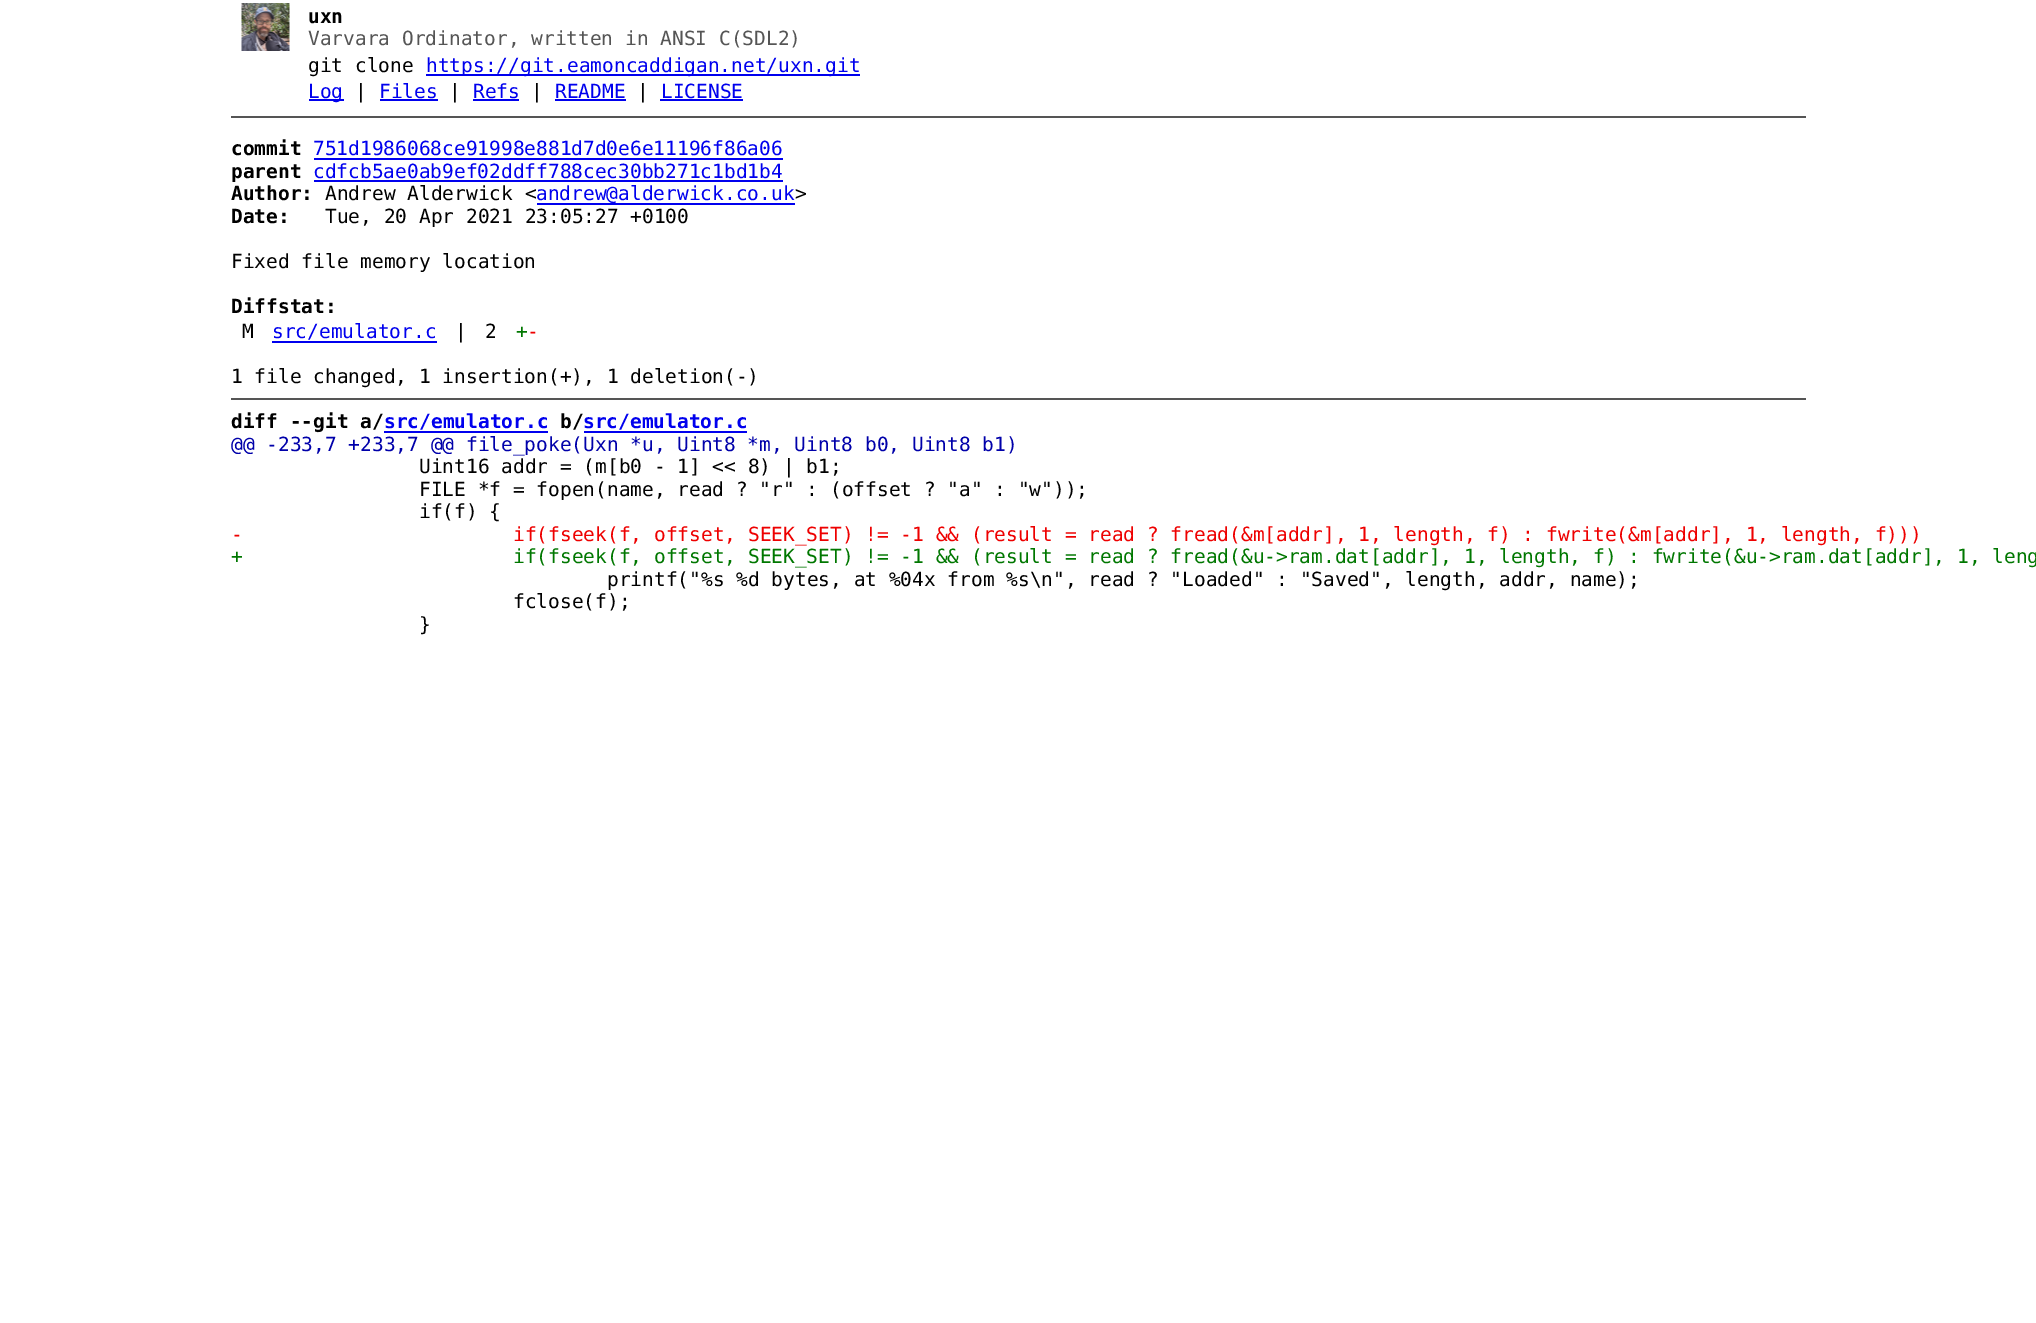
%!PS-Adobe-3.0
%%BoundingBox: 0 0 2036 1323
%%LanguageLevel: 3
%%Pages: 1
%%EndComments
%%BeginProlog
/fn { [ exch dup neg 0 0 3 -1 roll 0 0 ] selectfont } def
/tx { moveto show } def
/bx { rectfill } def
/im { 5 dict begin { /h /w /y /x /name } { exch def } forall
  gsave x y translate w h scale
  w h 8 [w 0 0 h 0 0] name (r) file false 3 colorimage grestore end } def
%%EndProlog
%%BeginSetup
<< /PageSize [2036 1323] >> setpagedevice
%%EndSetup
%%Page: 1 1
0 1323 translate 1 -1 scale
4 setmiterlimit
1 setgray
0 0 2036 1323 bx
(image0.raw) 241 3 49 48 im
/DejaVuSansMono-Bold 19.5 fn
0 setgray
(uxn) 308 23 tx
/DejaVuSansMono-Regular 19.5 fn
0.333 setgray
(Varvara Ordinator, written in ANSI C\(SDL2\)) 308 45 tx
0 setgray
(git clone) 308 72 tx
0 0 0.933 setrgbcolor
426 74 434 2 bx
(https://git.eamoncaddigan.net/uxn.git) 426 72 tx
309 99 35 2 bx
(Log) 308 98 tx
0 setgray
(|) 355 98 tx
0 0 0.933 setrgbcolor
(Files) 379 98 tx
380 99 58 2 bx
0 setgray
(|) 449 98 tx
0 0 0.933 setrgbcolor
(Refs) 473 98 tx
473 99 46 2 bx
0 setgray
(|) 531 98 tx
0 0 0.933 setrgbcolor
(README) 555 98 tx
555 99 71 2 bx
0 setgray
(|) 637 98 tx
0 0 0.933 setrgbcolor
(LICENSE) 661 98 tx
660 99 83 2 bx
0.333 setgray
231 116 1575 2 bx
/DejaVuSansMono-Bold 19.5 fn
0 setgray
(commit) 231 155 tx
/DejaVuSansMono-Regular 19.5 fn
0 0 0.933 setrgbcolor
(751d1986068ce91998e881d7d0e6e11196f86a06) 313 155 tx
314 158 469 2 bx
/DejaVuSansMono-Bold 19.5 fn
0 setgray
(parent) 231 178 tx
/DejaVuSansMono-Regular 19.5 fn
0 0 0.933 setrgbcolor
(cdfcb5ae0ab9ef02ddff788cec30bb271c1bd1b4) 313 178 tx
314 180 469 2 bx
/DejaVuSansMono-Bold 19.5 fn
0 setgray
(Author:) 231 200 tx
/DejaVuSansMono-Regular 19.5 fn
(Andrew Alderwick <) 325 200 tx
0 0 0.933 setrgbcolor
537 203 258 2 bx
(andrew@alderwick.co.uk) 536 200 tx
0 setgray
(>) 795 200 tx
/DejaVuSansMono-Bold 19.5 fn
(Date:) 231 223 tx
/DejaVuSansMono-Regular 19.5 fn
(Tue, 20 Apr 2021 23:05:27 +0100) 325 223 tx
(Fixed file memory location) 231 268 tx
/DejaVuSansMono-Bold 19.5 fn
(Diffstat:) 231 313 tx
/DejaVuSansMono-Regular 19.5 fn
(M) 242 338 tx
0 0 0.933 setrgbcolor
(src/emulator.c) 272 338 tx
272 341 165 2 bx
0 setgray
(|) 455 338 tx
(2) 485 338 tx
0 0.467 0 setrgbcolor
(+) 516 338 tx
0.933 0 0 setrgbcolor
(-) 527 338 tx
0 setgray
(1 file changed, 1 insertion\(+\), 1 deletion\(-\)) 231 383 tx
0.333 setgray
231 398 1575 2 bx
/DejaVuSansMono-Bold 19.5 fn
0 setgray
(diff --git a/) 231 428 tx
0 0 0.933 setrgbcolor
384 431 164 2 bx
(src/emulator.c) 384 428 tx
0 setgray
(b/) 560 428 tx
0 0 0.933 setrgbcolor
(src/emulator.c) 583 428 tx
584 431 163 2 bx
/DejaVuSansMono-Regular 19.5 fn
0 0 0.667 setrgbcolor
(@@ -233,7 +233,7 @@ file_poke\(Uxn *u, Uint8 *m, Uint8 b0, Uint8 b1\)) 231 451 tx
0 setgray
(Uint16 addr = \(m[b0 - 1] << 8\) | b1;) 419 473 tx
(FILE *f = fopen\(name, read ? "r" : \(offset ? "a" : "w"\)\);) 419 496 tx
(if\(f\) {) 419 518 tx
0.933 0 0 setrgbcolor
(-) 231 541 tx
(if\(fseek\(f, offset, SEEK_SET\) != -1 && \(result = read ? fread\(&m[addr], 1, length, f\) : fwrite\(&m[addr], 1, length, f\)\)\)) 513 541 tx
0 0.467 0 setrgbcolor
(+) 231 563 tx
(if\(fseek\(f, offset, SEEK_SET\) != -1 && \(result = read ? fread\(&u->ram.dat[addr], 1, length, f\) : fwrite\(&u->ram.dat[addr], 1, leng) 513 563 tx
0 setgray
(printf\("%s %d bytes, at %04x from %s\\n", read ? "Loaded" : "Saved", length, addr, name\);) 607 586 tx
(fclose\(f\);) 513 608 tx
(}) 419 631 tx
showpage
%%EOF
